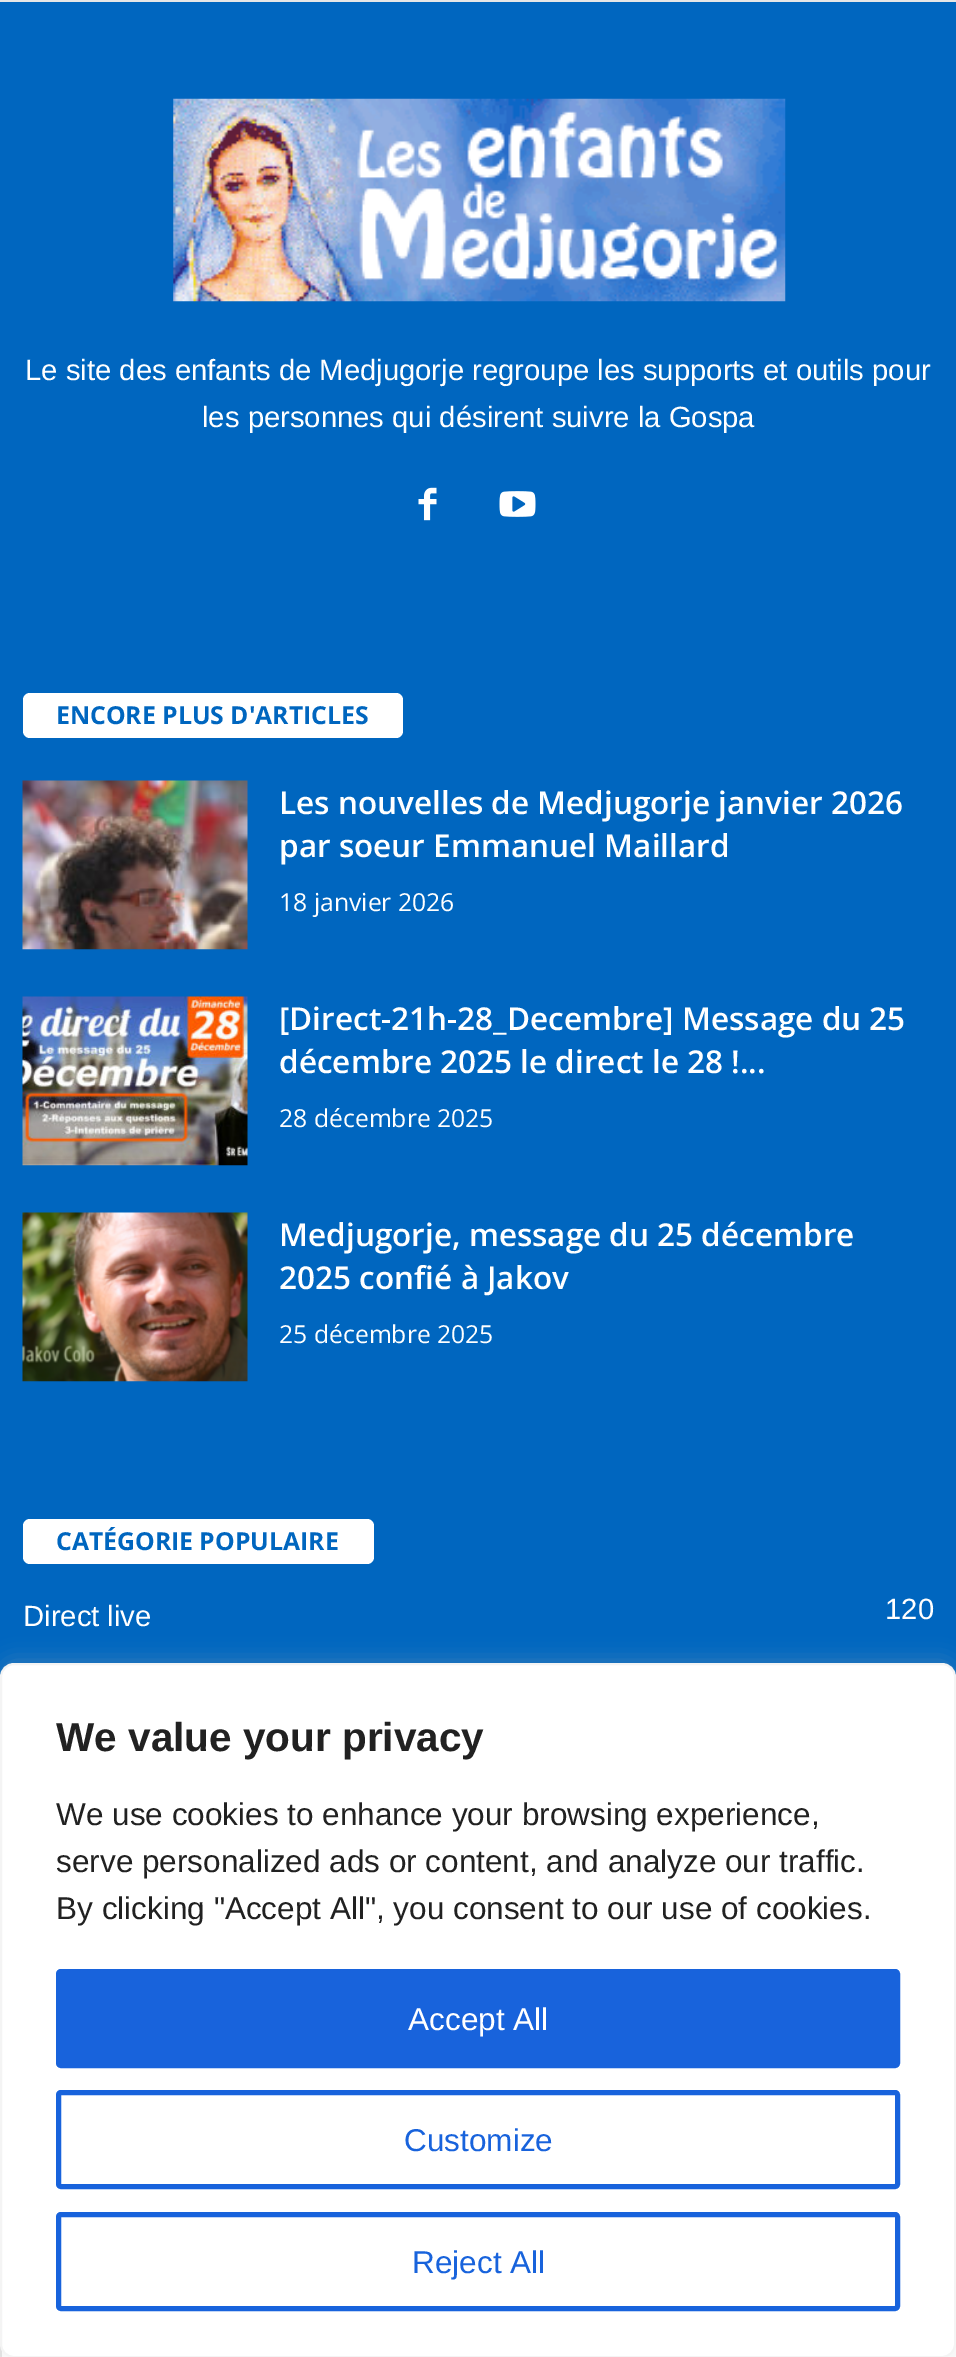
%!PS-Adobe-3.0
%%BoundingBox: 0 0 956 2357
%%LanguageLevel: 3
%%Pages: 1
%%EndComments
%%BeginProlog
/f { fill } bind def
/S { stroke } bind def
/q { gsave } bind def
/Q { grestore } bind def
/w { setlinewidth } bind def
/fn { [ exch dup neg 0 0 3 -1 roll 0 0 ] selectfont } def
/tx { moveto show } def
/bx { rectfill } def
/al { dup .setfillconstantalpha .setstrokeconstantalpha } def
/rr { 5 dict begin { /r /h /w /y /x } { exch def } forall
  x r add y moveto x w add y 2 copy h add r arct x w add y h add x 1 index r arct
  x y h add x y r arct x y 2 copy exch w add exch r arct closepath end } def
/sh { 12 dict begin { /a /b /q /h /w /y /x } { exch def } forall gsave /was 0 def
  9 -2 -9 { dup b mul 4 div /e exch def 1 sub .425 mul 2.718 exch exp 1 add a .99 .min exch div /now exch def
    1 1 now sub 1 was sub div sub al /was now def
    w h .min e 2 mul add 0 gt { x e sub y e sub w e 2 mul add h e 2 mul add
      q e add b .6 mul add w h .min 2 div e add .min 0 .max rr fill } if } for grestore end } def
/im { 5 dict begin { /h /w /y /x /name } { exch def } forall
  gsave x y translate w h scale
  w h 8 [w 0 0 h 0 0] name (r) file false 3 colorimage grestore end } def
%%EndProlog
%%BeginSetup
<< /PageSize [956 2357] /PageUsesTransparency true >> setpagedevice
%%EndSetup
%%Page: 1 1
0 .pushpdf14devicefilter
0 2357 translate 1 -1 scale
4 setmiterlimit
0 0.4 0.749 setrgbcolor
0 0 956 2357 bx
0.902 setgray
0 0 956 2 bx
(image0.raw) 173 98 613 204 im
/LiberationSans-Regular 29.25 fn
1 setgray
(Le site des enfants de Medjugorje regroupe les supports et outils pour) 25 380 tx
(les personnes qui désirent suivre la Gospa) 202 427 tx
(image1.raw) 418 487 19 34 im
(image2.raw) 499 491 37 26 im
23 693 380 45 7 rr f
/OpenSans-Bold 24.75 fn
0 0.4 0.749 setrgbcolor
(ENCORE PLUS D'ARTICLES) 56 724 tx
(image3.raw) 22 780 226 170 im
/OpenSans-SemiBold 31.5 fn
1 setgray
(Les nouvelles de Medjugorje janvier 2026) 279 814 tx
(par soeur Emmanuel Maillard) 279 857 tx
/OpenSans-Regular 24.75 fn
(18 janvier 2026) 279 911 tx
(image4.raw) 22 996 226 170 im
/OpenSans-SemiBold 31.5 fn
([Direct-21h-28_Decembre] Message du 25) 279 1030 tx
(décembre 2025 le direct le 28 !...) 279 1073 tx
/OpenSans-Regular 24.75 fn
(28 décembre 2025) 279 1127 tx
(image5.raw) 22 1212 226 170 im
/OpenSans-SemiBold 31.5 fn
(Medjugorje, message du 25 décembre) 279 1246 tx
(2025 confié à Jakov) 279 1289 tx
/OpenSans-Regular 24.75 fn
(25 décembre 2025) 279 1343 tx
23 1519 351 45 7 rr f
/OpenSans-Bold 24.75 fn
0 0.4 0.749 setrgbcolor
(CATÉGORIE POPULAIRE) 56 1550 tx
/LiberationSans-Regular 29.25 fn
1 setgray
(Direct live) 23 1626 tx
(120) 885 1619 tx
2 2344 954 13 bx
0.902 setgray
0 2344 2 13 bx
0.675 0.671 0.671 setrgbcolor
0 1661 956 695 14 11 0.3 sh
1 setgray
1 1664 954 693 13 rr q f Q
0.957 setgray
2 w
S
/LiberationSans-Bold 40.5 fn
0.129 setgray
(We value your privacy) 56 1751 tx
/LiberationSans-Regular 31.5 fn
(We use cookies to enhance your browsing experience,) 56 1825 tx
(serve personalized ads or content, and analyze our traffic.) 56 1872 tx
(By clicking "Accept All", you consent to our use of cookies.) 56 1919 tx
0.094 0.388 0.863 setrgbcolor
58.5 1971.5 839 94 2.5 rr q f Q
5 w
S
1 setgray
(Accept All) 408 2030 tx
0.094 0.388 0.863 setrgbcolor
58.5 2092.5 839 94 2.5 rr S
(Customize) 404 2151 tx
58.5 2214.5 839 94 2.5 rr S
(Reject All) 412 2273 tx
.poppdf14devicefilter showpage
%%EOF
